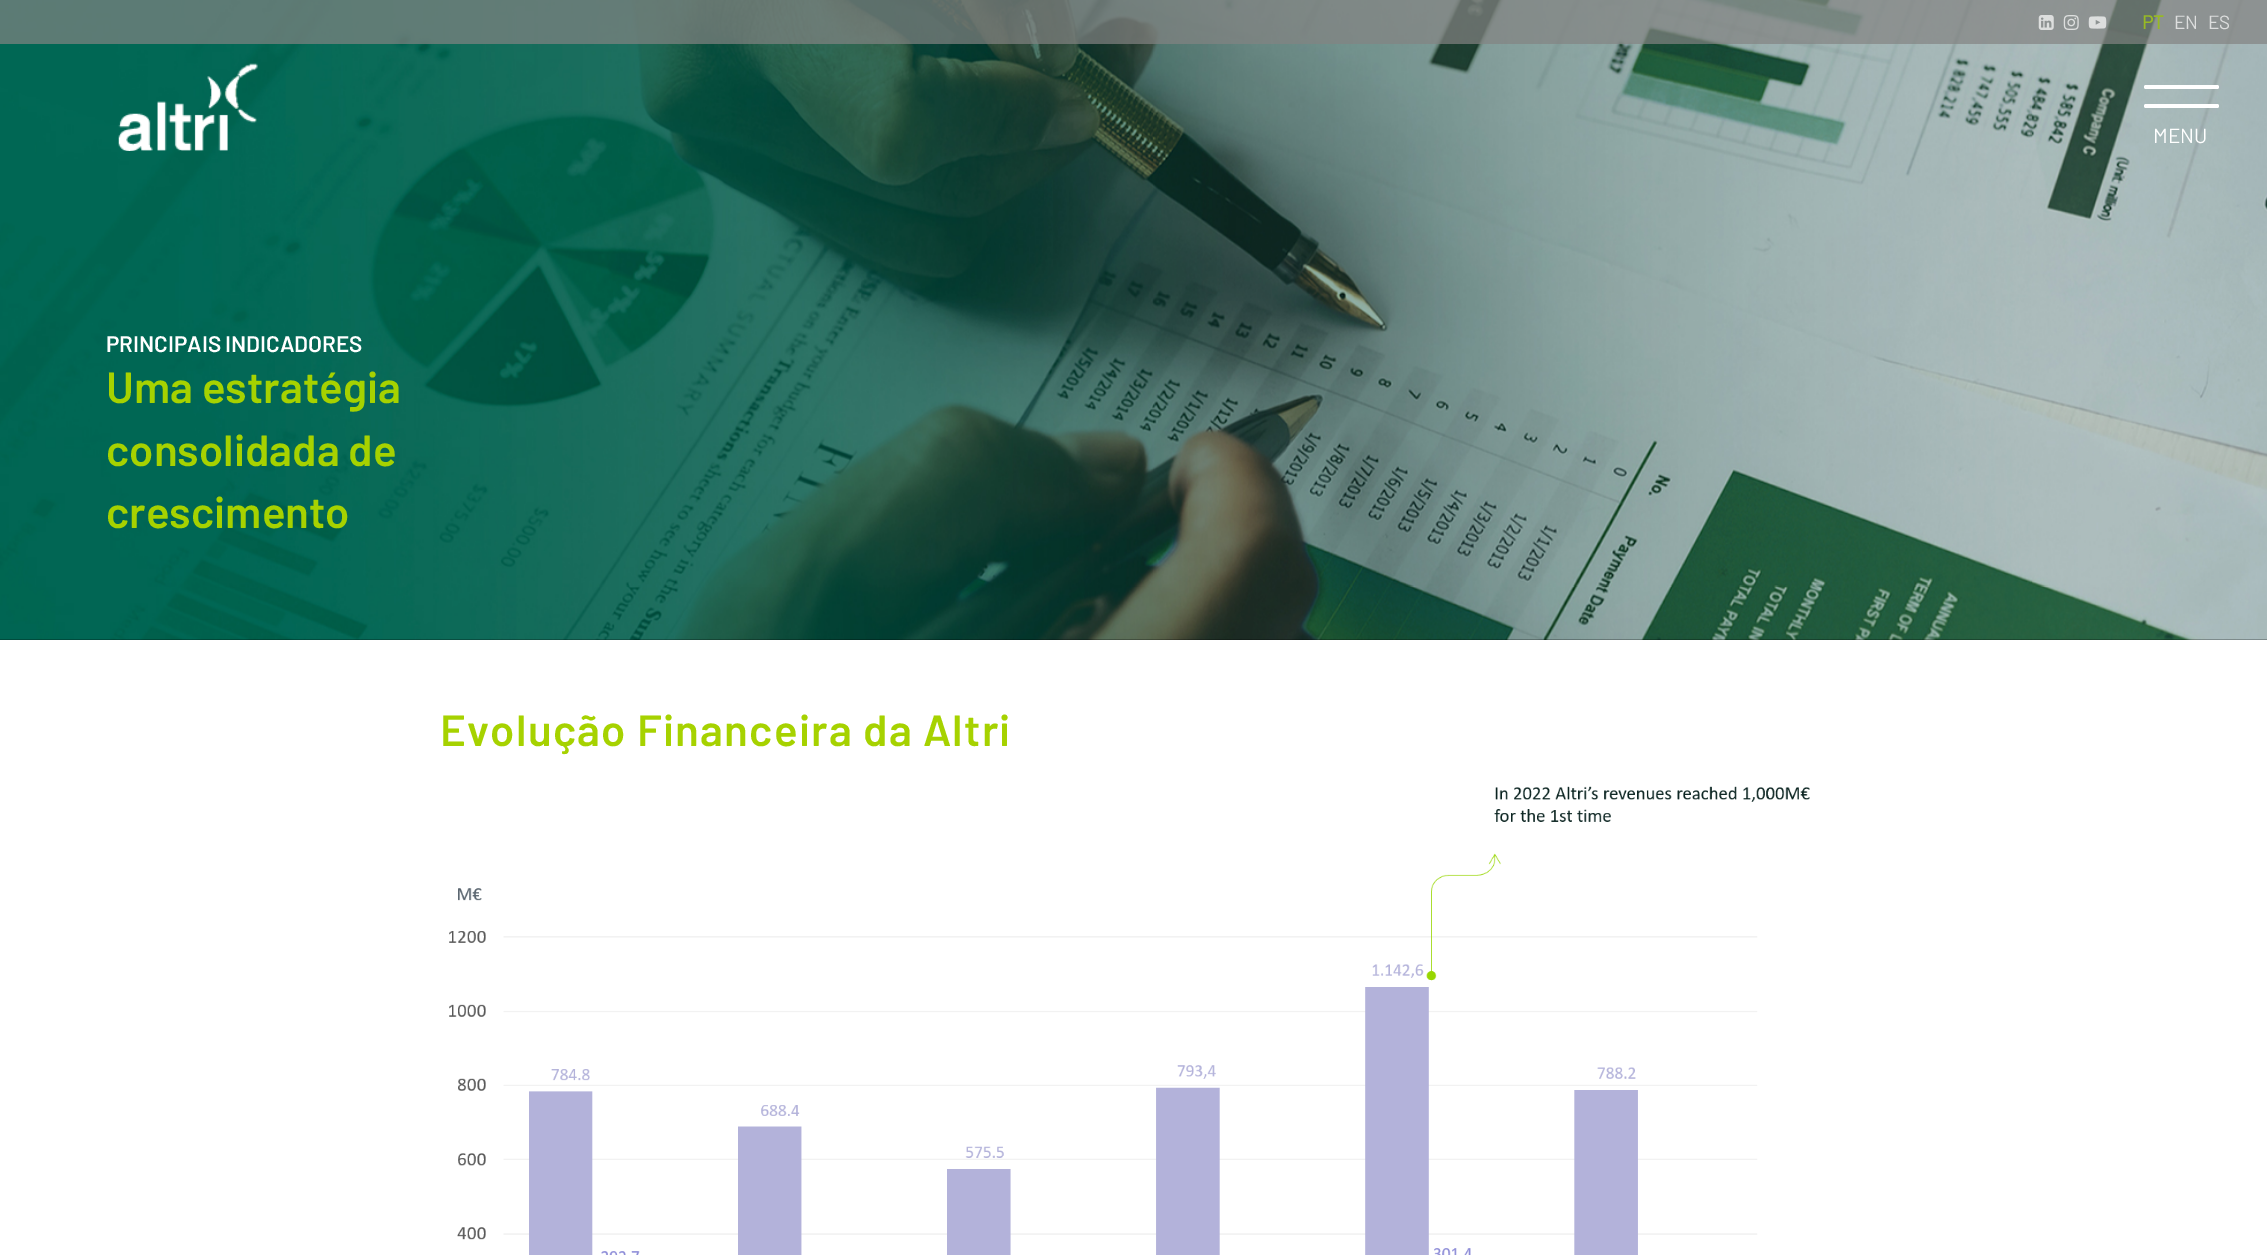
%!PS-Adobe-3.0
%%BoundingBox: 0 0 2267 1255
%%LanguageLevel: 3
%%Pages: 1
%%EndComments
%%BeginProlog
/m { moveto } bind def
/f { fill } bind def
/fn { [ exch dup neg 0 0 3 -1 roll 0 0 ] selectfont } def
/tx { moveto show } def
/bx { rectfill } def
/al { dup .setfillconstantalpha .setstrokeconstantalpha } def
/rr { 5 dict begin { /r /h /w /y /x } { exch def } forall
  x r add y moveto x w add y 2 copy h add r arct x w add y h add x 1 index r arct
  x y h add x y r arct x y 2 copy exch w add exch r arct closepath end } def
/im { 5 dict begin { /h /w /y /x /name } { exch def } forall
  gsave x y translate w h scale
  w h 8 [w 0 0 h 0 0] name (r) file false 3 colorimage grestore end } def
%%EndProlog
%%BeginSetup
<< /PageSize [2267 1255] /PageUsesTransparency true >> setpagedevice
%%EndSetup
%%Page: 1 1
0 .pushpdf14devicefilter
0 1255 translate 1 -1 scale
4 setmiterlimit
1 setgray
0 0 2267 1255 bx
(image4.raw) 0 0 2267 640 im
0.7 al
0.514 0.514 0.51 setrgbcolor
0 0 2267 44 bx
1 al
(image0.raw) 2038 15 16 15 im
(image1.raw) 2063 15 16 15 im
(image2.raw) 2088 16 19 13 im
/Barlow-Bold 19 fn
0.592 0.725 0.141 setrgbcolor
(PT) 2142 29 tx
/Barlow-Regular 19 fn
0.867 0.871 0.871 setrgbcolor
(EN) 2174 29 tx
(ES) 2208 29 tx
(image3.raw) 118 63 140 88 im
1 setgray
2144 85 75 4 2 rr f
2144 104 75 4 2 rr f
/Barlow-Regular 20.5 fn
(MENU) 2153 143 tx
/Barlow-SemiBold 22.5 fn
(PRINCIPAIS INDICADORES) 106 352 tx
/Barlow-SemiBold 43.75 fn
0.651 0.824 0 setrgbcolor
(Uma estratégia) 106 403 tx
(consolidada de) 106 466 tx
(crescimento) 106 528 tx
440 746 m 1.25 0 (Evolução Financeira da Altri) ashow
(image5.raw) 449 786 1361 469 im
.poppdf14devicefilter showpage
%%EOF
